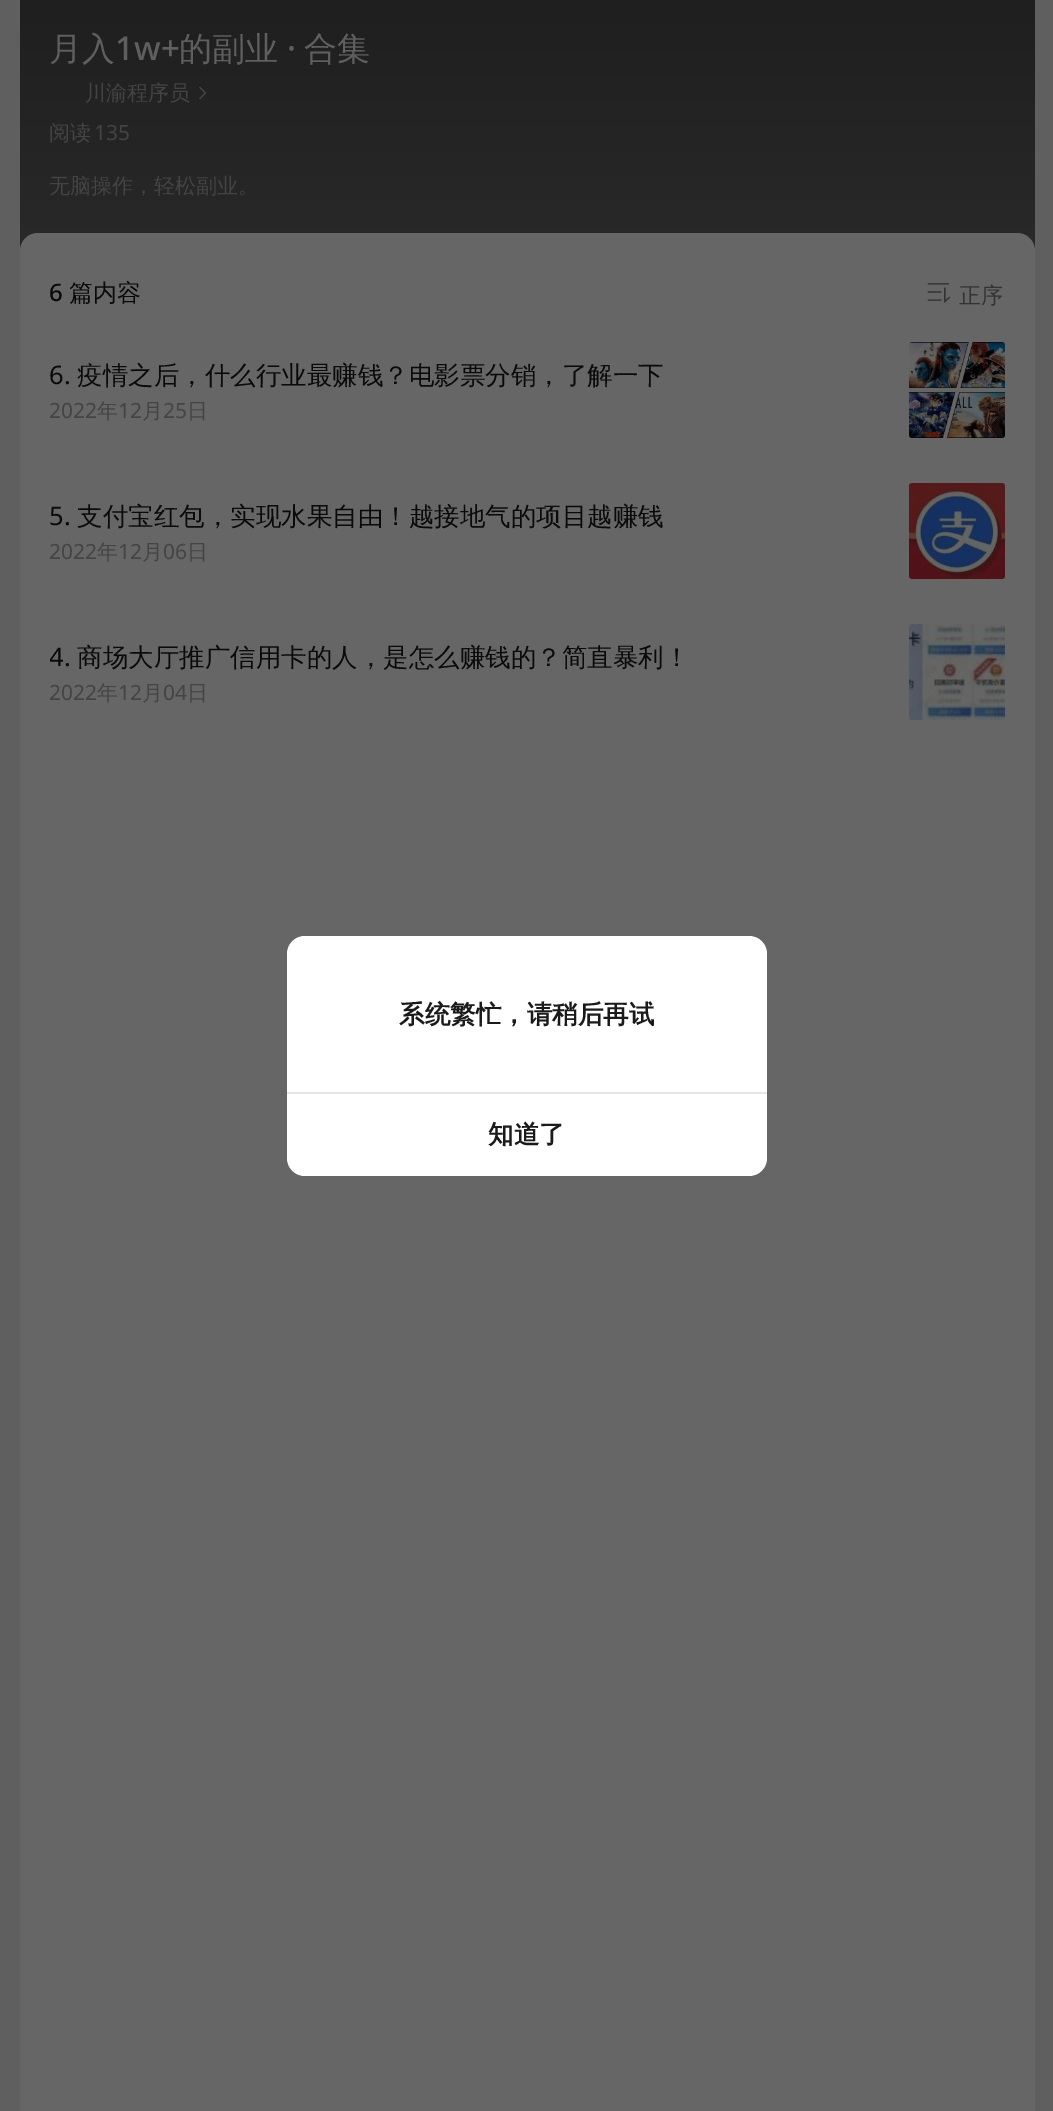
%!PS-Adobe-3.0
%%BoundingBox: 0 0 1053 2111
%%LanguageLevel: 3
%%Pages: 1
%%EndComments
%%BeginProlog
/m { moveto } bind def
/l { lineto } bind def
/c { curveto } bind def
/h { closepath } bind def
/f { fill } bind def
/q { gsave } bind def
/Q { grestore } bind def
/fn { [ exch dup neg 0 0 3 -1 roll 0 0 ] selectfont } def
/tx { moveto show } def
/bx { rectfill } def
/rr { 5 dict begin { /r /h /w /y /x } { exch def } forall
  x r add y moveto x w add y 2 copy h add r arct x w add y h add x 1 index r arct
  x y h add x y r arct x y 2 copy exch w add exch r arct closepath end } def
/im { 5 dict begin { /h /w /y /x /name } { exch def } forall
  gsave x y translate w h scale
  w h 8 [w 0 0 h 0 0] name (r) file false 3 colorimage grestore end } def
%%EndProlog
%%BeginSetup
<< /PageSize [1053 2111] >> setpagedevice
%%EndSetup
%%Page: 1 1
0 2111 translate 1 -1 scale
4 setmiterlimit
0.373 setgray
0 0 1053 2111 bx
0.4 setgray
20 263 1015 1848 bx
q 20 0 m 1035 0 l 1035 251 l 20 251 l h clip newpath
<< /ShadingType 2 /ColorSpace /DeviceRGB /Coords [527 0 527 257] /Extend [true true] /Function << /FunctionType 2 /Domain [0 1] /C0 [0.122 0.122 0.122] /C1 [0.161 0.161 0.161] /N 1 >> >> shfill Q
/WenQuanYiZenHei-Medium 33 fn
0.373 setgray
(月入) 49 60 tx
/NotoSans-Medium 33 fn
(1w+) 115 60 tx
/WenQuanYiZenHei-Medium 33 fn
(的副业) 179 60 tx
/NotoSans-Medium 33 fn
(·) 287 60 tx
/WenQuanYiZenHei-Medium 33 fn
(合集) 304 60 tx
/WenQuanYiZenHei-Medium 21 fn
0.267 setgray
(川渝程序员) 85 100 tx
(image0.raw) 199 86 7 14 im
(阅读) 49 140 tx
/NotoSans-Regular 21 fn
(135) 94 140 tx
/WenQuanYiZenHei-Medium 21 fn
(无脑操作，轻松副业。) 49 193 tx
0.4 setgray
38 233 m 1017 233 l 1027 233 1035 241 1035 251 c 1035 263 l 20 263 l 20 251 l 20 241 28 233 38 233 c h f
/NotoSans-Medium 24 fn
0.039 setgray
(6) 49 301 tx
/WenQuanYiZenHei-Medium 24 fn
(篇内容) 69 301 tx
(image1.raw) 927 283 24 20 im
/WenQuanYiZenHei-Medium 22 fn
0.2 setgray
(正序) 959 303 tx
/NotoSans-Regular 25.5 fn
0.039 setgray
(6.) 49 384 tx
/WenQuanYiZenHei-Medium 25.5 fn
(疫情之后，什么行业最赚钱？电影票分销，了解一下) 77 384 tx
/NotoSans-Regular 21 fn
0.267 setgray
(2022) 49 418 tx
/WenQuanYiZenHei-Medium 21 fn
(年) 97 418 tx
/NotoSans-Regular 21 fn
(12) 118 418 tx
/WenQuanYiZenHei-Medium 21 fn
(月) 142 418 tx
/NotoSans-Regular 21 fn
(25) 163 418 tx
/WenQuanYiZenHei-Medium 21 fn
(日) 187 418 tx
(image2.raw) 909 342 96 96 im
/NotoSans-Regular 25.5 fn
0.039 setgray
(5.) 49 525 tx
/WenQuanYiZenHei-Medium 25.5 fn
(支付宝红包，实现水果自由！越接地气的项目越赚钱) 77 525 tx
/NotoSans-Regular 21 fn
0.267 setgray
(2022) 49 559 tx
/WenQuanYiZenHei-Medium 21 fn
(年) 97 559 tx
/NotoSans-Regular 21 fn
(12) 118 559 tx
/WenQuanYiZenHei-Medium 21 fn
(月) 142 559 tx
/NotoSans-Regular 21 fn
(06) 163 559 tx
/WenQuanYiZenHei-Medium 21 fn
(日) 187 559 tx
(image3.raw) 909 483 96 96 im
q
50 639 835 36 rectclip
/NotoSans-Regular 25.5 fn
0.039 setgray
(4.) 49 666 tx
Q
/WenQuanYiZenHei-Medium 25.5 fn
0.039 setgray
(商场大厅推广信用卡的人，是怎么赚钱的？简直暴利！) 77 666 tx
/NotoSans-Regular 21 fn
0.267 setgray
(2022) 49 700 tx
/WenQuanYiZenHei-Medium 21 fn
(年) 97 700 tx
/NotoSans-Regular 21 fn
(12) 118 700 tx
/WenQuanYiZenHei-Medium 21 fn
(月) 142 700 tx
/NotoSans-Regular 21 fn
(04) 163 700 tx
/WenQuanYiZenHei-Medium 21 fn
(日) 187 700 tx
(image4.raw) 909 624 96 96 im
1 setgray
287 936 480 240 18 rr f
/WenQuanYiZenHei-Bold 25.5 fn
0.102 setgray
(系统繁忙，请稍后再试) 399 1023 tx
0.902 setgray
287 1092 480 2 1 rr f
0.102 setgray
(知道了) 488 1143 tx
showpage
%%EOF
